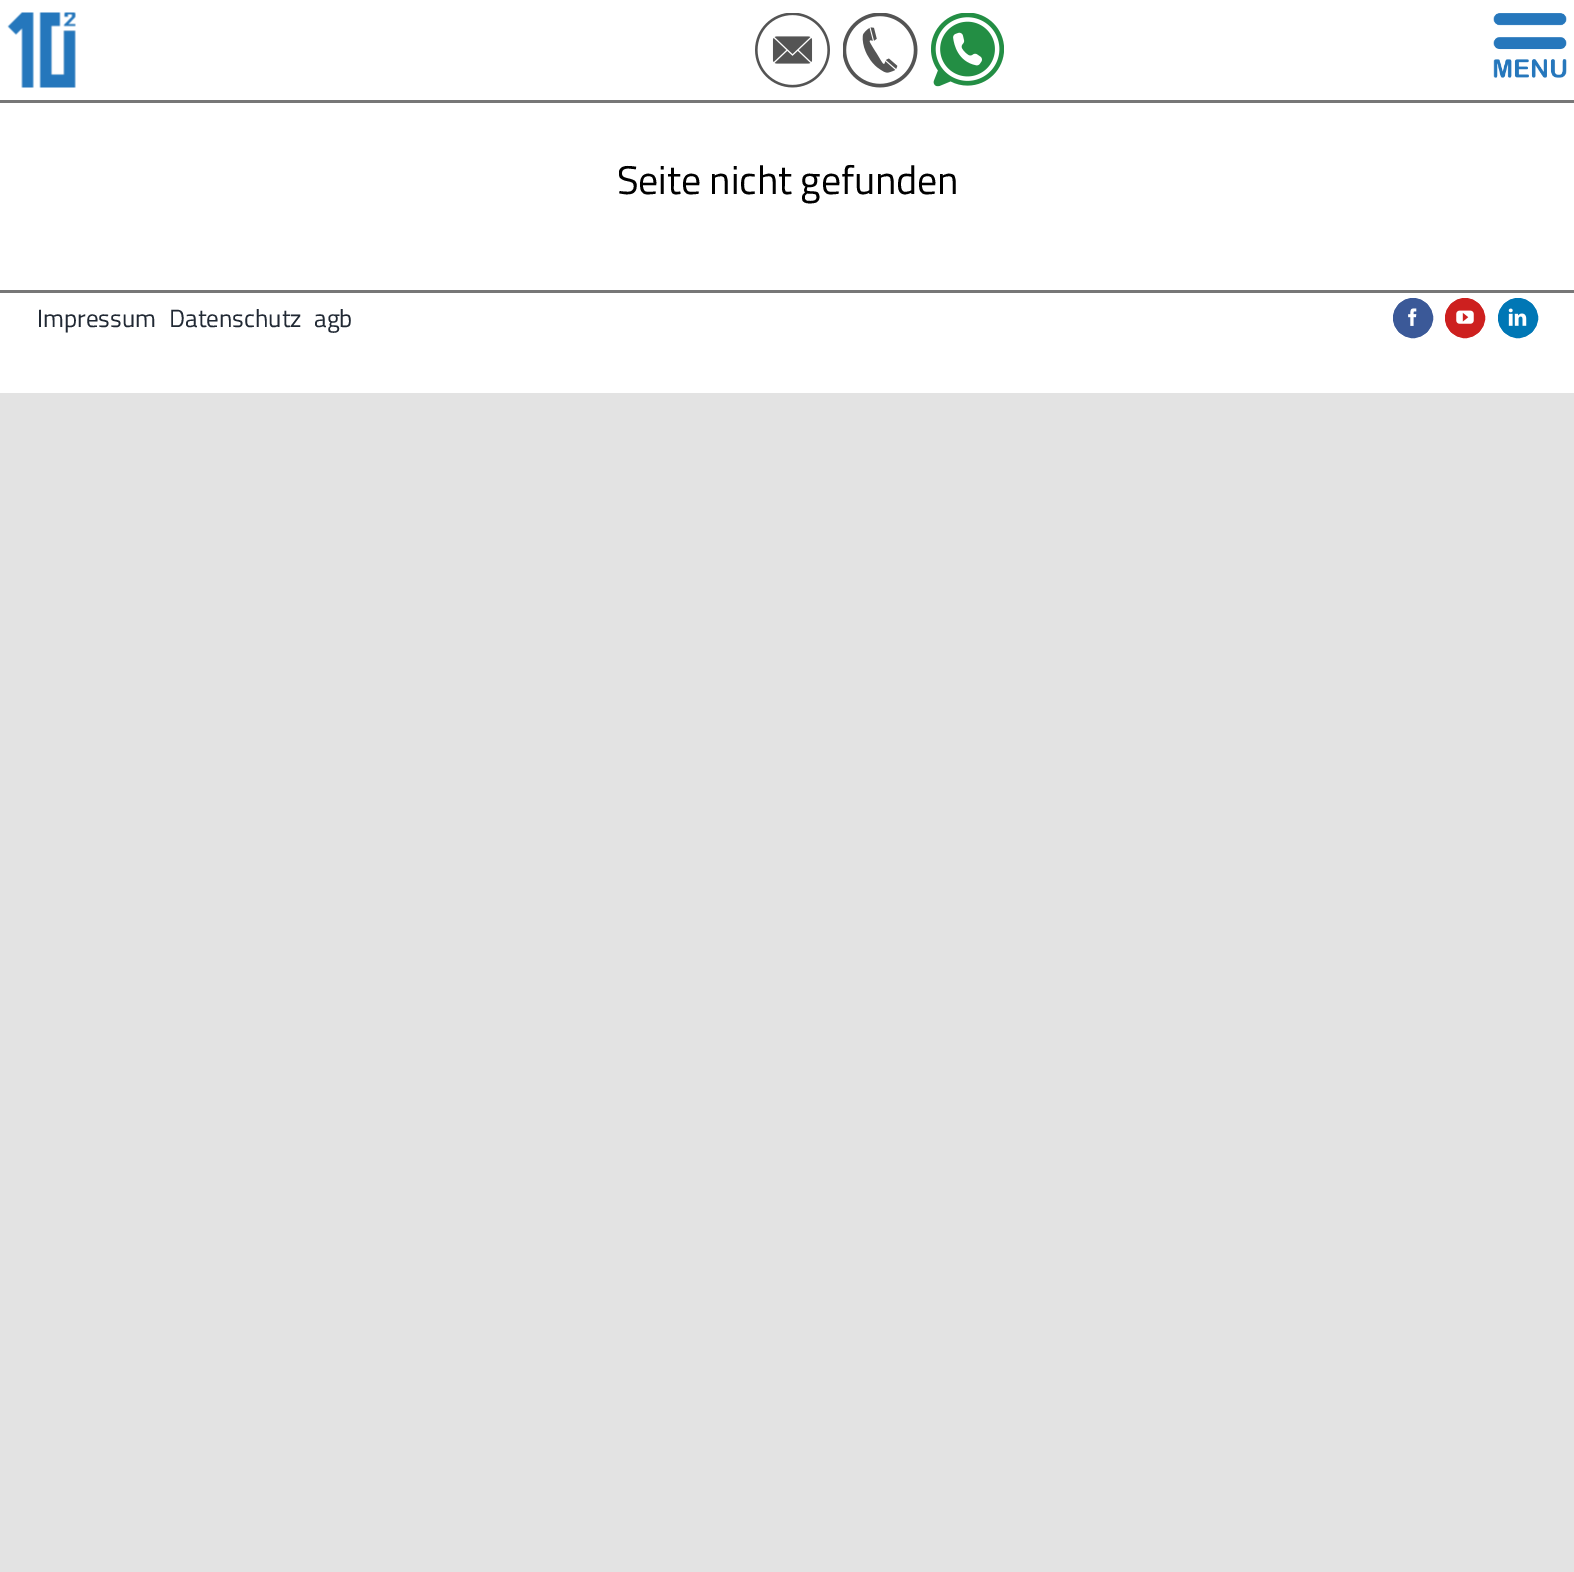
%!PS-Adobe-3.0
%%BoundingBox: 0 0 1574 1572
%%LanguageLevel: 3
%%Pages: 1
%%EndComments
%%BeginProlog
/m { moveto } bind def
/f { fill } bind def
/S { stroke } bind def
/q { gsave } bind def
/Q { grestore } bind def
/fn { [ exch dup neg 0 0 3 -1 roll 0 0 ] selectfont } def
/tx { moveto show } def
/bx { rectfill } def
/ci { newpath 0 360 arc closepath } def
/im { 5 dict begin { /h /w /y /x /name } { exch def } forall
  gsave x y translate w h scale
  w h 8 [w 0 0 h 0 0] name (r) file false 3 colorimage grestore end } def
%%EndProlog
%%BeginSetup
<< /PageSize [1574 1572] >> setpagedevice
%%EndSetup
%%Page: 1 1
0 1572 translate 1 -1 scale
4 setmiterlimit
0.89 setgray
0 0 1574 1572 bx
1 setgray
0 0 1574 393 bx
0.467 setgray
0 100 1574 3 bx
(image0.raw) 7 12 69 76 im
(image1.raw) 755 13 75 75 im
(image2.raw) 843 13 75 75 im
(image3.raw) 931 13 73 74 im
(image4.raw) 1493 13 74 65 im
/TitilliumWeb-Regular 40 fn
0 setgray
617 194 m -0.2 0 (Seite nicht gefunden) ashow
0.467 setgray
0 290 1574 3 bx
/TitilliumWeb-Regular 25 fn
0.129 0.161 0.204 setrgbcolor
(Impressum) 37 327 tx
(Datenschutz) 169 327 tx
(agb) 314 327 tx
0.231 0.349 0.596 setrgbcolor
1413 318 19.5 ci q f Q
S
(image5.raw) 1408 308 9 18 im
0.804 0.125 0.122 setrgbcolor
1465 318 19.5 ci q f Q
S
(image6.raw) 1456 310 18 14 im
0 0.467 0.71 setrgbcolor
1518 318 19.5 ci q f Q
S
(image7.raw) 1508 308 19 18 im
showpage
%%EOF
